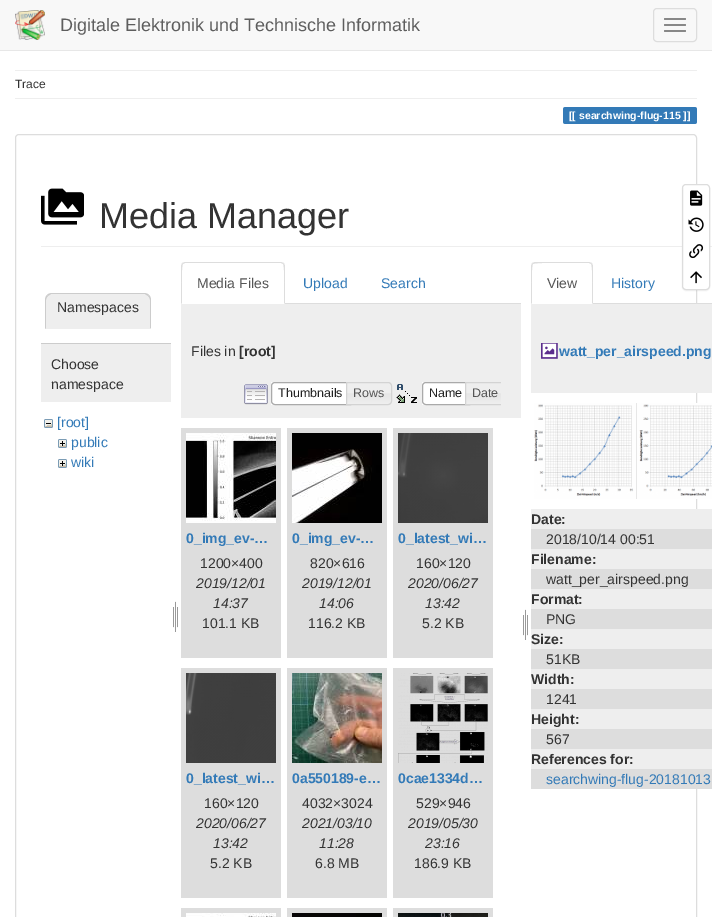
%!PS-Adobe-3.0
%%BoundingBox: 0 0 712 917
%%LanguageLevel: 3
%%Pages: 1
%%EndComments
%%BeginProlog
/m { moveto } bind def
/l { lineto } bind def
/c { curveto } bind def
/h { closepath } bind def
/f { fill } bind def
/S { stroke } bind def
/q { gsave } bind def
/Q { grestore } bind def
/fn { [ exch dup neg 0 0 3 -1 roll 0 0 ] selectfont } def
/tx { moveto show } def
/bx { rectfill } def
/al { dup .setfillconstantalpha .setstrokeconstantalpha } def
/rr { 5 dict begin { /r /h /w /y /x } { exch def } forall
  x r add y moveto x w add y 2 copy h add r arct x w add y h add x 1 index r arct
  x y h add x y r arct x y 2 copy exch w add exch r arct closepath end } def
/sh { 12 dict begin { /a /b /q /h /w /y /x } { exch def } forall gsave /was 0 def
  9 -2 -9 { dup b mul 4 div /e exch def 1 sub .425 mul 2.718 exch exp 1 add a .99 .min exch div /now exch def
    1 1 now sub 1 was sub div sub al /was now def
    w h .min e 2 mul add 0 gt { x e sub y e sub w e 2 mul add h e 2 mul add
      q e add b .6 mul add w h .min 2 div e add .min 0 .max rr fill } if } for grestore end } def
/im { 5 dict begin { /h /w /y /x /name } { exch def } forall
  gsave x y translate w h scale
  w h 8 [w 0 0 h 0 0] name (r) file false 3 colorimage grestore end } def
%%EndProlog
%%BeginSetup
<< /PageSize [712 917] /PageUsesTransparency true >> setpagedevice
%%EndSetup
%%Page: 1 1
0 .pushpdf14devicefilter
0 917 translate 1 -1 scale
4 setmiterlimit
1 setgray
0 0 712 917 bx
0.973 setgray
0 0 712 50 bx
0.906 setgray
0 50 712 1 bx
(image0.raw) 15 10 30 30 im
/LiberationSans-Regular 18 fn
0.369 setgray
(Digitale Elektronik und Technische Informatik) 60 31 tx
0.867 setgray
653.5 8.5 43 33 3.5 rr S
0.533 setgray
664 18 22 2 1 rr f
664 24 22 2 1 rr f
664 30 22 2 1 rr f
0.933 setgray
15 70 682 1 bx
/LiberationSans-Regular 12 fn
0.2 setgray
(Trace) 15 88 tx
0.933 setgray
15 98 682 1 bx
0.2 0.478 0.718 setrgbcolor
565.5 107 m 579 107 l 579 124 l 565.5 124 l 564 124 563 123 563 121.5 c 563 109.5 l 563 108 564 107 565.5 107 c h f
579 107 102 17 bx
681 107 m 694.5 107 l 696 107 697 108 697 109.5 c 697 121.5 l 697 123 696 124 694.5 124 c 681 124 l h f
/LiberationSans-Bold 10.5 fn
1 setgray
([[ searchwing-flug-115 ]]) 569 119 tx
0.867 setgray
15.5 134.5 681 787 3.5 rr S
0.933 setgray
41 246 671 1 bx
0 setgray
682 185 28 106 4 0.5 0.05 sh
1 setgray
682.5 184.5 27 105 3.5 rr q f Q
0.867 setgray
S
(image1.raw) 690 190 13 16 im
(image2.raw) 688 217 16 15 im
(image3.raw) 689 244 15 15 im
(image4.raw) 690 271 12 13 im
(image5.raw) 41 188 43 37 im
/LiberationSans-Regular 36 fn
0.2 setgray
(Media Manager) 99 228 tx
0.933 setgray
52 293 m 144 293 l 148 293 151 296 151 300 c 151 329 l 45 329 l 45 300 l 45 296 48 293 52 293 c h f
0.8 setgray
52 293 m 50 293 48 294 47 295 c 48 296 l 51 294 l 145 294 l 148 296 l 149 295 l 148 294 146 293 144 293 c h f
151 329 m 151 300 l 151 298 150 296 149 295 c 148 296 l 149 297 150 298.5 150 300 c 150 328 l h f
0.933 setgray
151 329 m 150 328 l 46 328 l 45 329 l h f
0.8 setgray
45 329 m 46 328 l 46 300 l 46 298.5 47 297 48 296 c 47 295 l 46 296 45 298 45 300 c h f
/LiberationSans-Regular 14 fn
0.2 setgray
(Namespaces) 57 312 tx
0.933 setgray
41 344 130 58 bx
0.8 setgray
41 343 130 1 bx
0.2 setgray
(Choose) 51 369 tx
(namespace) 51 389 tx
(image6.raw) 44 419 9 9 im
0.2 0.478 0.718 setrgbcolor
([root]) 57 427 tx
(image7.raw) 58 439 9 9 im
(public) 71 447 tx
(image7.raw) 58 459 9 9 im
(wiki) 71 467 tx
(image8.raw) 173 601 5 31 im
0.867 setgray
285 303 236 1 bx
185 262 m 182 263 l 183 264 l 185 263 l 281 263 l 283 264 l 284 263 l 281 262 l h f
285 304 m 285 266 l 285 265 284 264 284 263 c 283 264 l 285 266 284 298 284 303 c h f
181 304 m 182 303 l 182 298 181 266 183 264 c 182 263 l 181 266 l h f
0.333 setgray
(Media Files) 197 288 tx
0.2 0.478 0.718 setrgbcolor
(Upload) 303 288 tx
(Search) 381 288 tx
0.933 setgray
181 304 340 114 bx
0.2 setgray
(Files in) 191 356 tx
/LiberationSans-Bold 14 fn
([root]) 239 356 tx
(image9.raw) 244 384 24 21 im
1 setgray
271 382 75 23 bx
0.667 setgray
275 382.5 m 350.5 382.5 l 350.5 404.5 l 275 404.5 l 273 404.5 271.5 403 271.5 401 c 271.5 386 l 271.5 384 273 382.5 275 382.5 c h S
/LiberationSans-Regular 12.5 fn
0.129 setgray
(Thumbnails) 278 397 tx
(image10.raw) 347 382 45 23 im
0.827 setgray
346.5 382.5 m 388 382.5 l 390 382.5 391.5 384 391.5 386 c 391.5 401 l 391.5 403 390 404.5 388 404.5 c 346.5 404.5 l h S
0.333 setgray
(Rows) 353 397 tx
(image11.raw) 396 384 21 19 im
1 setgray
422 382 43 23 bx
0.667 setgray
426 382.5 m 469.5 382.5 l 469.5 404.5 l 426 404.5 l 424 404.5 422.5 403 422.5 401 c 422.5 386 l 422.5 384 424 382.5 426 382.5 c h S
0.129 setgray
(Name) 429 397 tx
(image12.raw) 466 383 35 21 im
q
236 382 265 28 rectclip
0.827 setgray
465.5 382.5 m 502 382.5 l 504 382.5 505.5 384 505.5 386 c 505.5 401 l 505.5 403 504 404.5 502 404.5 c 465.5 404.5 l h S
Q
0.333 setgray
(Date) 472 397 tx
0.867 setgray
181 428 100 230 bx
(image13.raw) 186 433 90 90 im
/LiberationSans-Bold 14 fn
0.2 0.478 0.718 setrgbcolor
(0_img_ev-…) 186 543 tx
/LiberationSans-Regular 14 fn
0.2 setgray
(1200×400) 200 568 tx
/LiberationSans-Italic 14 fn
(2019/12/01) 196 588 tx
(14:37) 213 608 tx
/LiberationSans-Regular 14 fn
(101.1 KB) 202 628 tx
0.867 setgray
287 428 100 230 bx
(image14.raw) 292 433 90 90 im
/LiberationSans-Bold 14 fn
0.2 0.478 0.718 setrgbcolor
(0_img_ev-…) 292 543 tx
/LiberationSans-Regular 14 fn
0.2 setgray
(820×616) 310 568 tx
/LiberationSans-Italic 14 fn
(2019/12/01) 302 588 tx
(14:06) 319 608 tx
/LiberationSans-Regular 14 fn
(116.2 KB) 308 628 tx
0.867 setgray
393 428 100 230 bx
(image15.raw) 398 433 90 90 im
/LiberationSans-Bold 14 fn
0.2 0.478 0.718 setrgbcolor
(0_latest_wi…) 398 543 tx
/LiberationSans-Regular 14 fn
0.2 setgray
(160×120) 416 568 tx
/LiberationSans-Italic 14 fn
(2020/06/27) 408 588 tx
(13:42) 425 608 tx
/LiberationSans-Regular 14 fn
(5.2 KB) 422 628 tx
0.867 setgray
181 668 100 230 bx
(image16.raw) 186 673 90 90 im
/LiberationSans-Bold 14 fn
0.2 0.478 0.718 setrgbcolor
(0_latest_wi…) 186 783 tx
/LiberationSans-Regular 14 fn
0.2 setgray
(160×120) 204 808 tx
/LiberationSans-Italic 14 fn
(2020/06/27) 196 828 tx
(13:42) 213 848 tx
/LiberationSans-Regular 14 fn
(5.2 KB) 210 868 tx
0.867 setgray
287 668 100 230 bx
(image17.raw) 292 673 90 90 im
/LiberationSans-Bold 14 fn
0.2 0.478 0.718 setrgbcolor
(0a550189-e…) 292 783 tx
/LiberationSans-Regular 14 fn
0.2 setgray
(4032×3024) 302 808 tx
/LiberationSans-Italic 14 fn
(2021/03/10) 302 828 tx
(11:28) 319 848 tx
/LiberationSans-Regular 14 fn
(6.8 MB) 315 868 tx
0.867 setgray
393 668 100 230 bx
(image18.raw) 398 673 90 90 im
/LiberationSans-Bold 14 fn
0.2 0.478 0.718 setrgbcolor
(0cae1334d…) 398 783 tx
/LiberationSans-Regular 14 fn
0.2 setgray
(529×946) 416 808 tx
/LiberationSans-Italic 14 fn
(2019/05/30) 408 828 tx
(23:16) 425 848 tx
/LiberationSans-Regular 14 fn
(186.9 KB) 414 868 tx
0.867 setgray
181 908 100 9 bx
(image19.raw) 186 913 90 4 im
287 908 100 9 bx
(image20.raw) 292 913 90 4 im
393 908 100 9 bx
(image21.raw) 398 913 90 4 im
(image8.raw) 523 609 5 31 im
593 303 119 1 bx
535 262 m 532 263 l 533 264 l 535 262 584 263 589 263 c 591 264 l 592 263 l 589 262 l h f
593 304 m 593 266 l 593 265 592 264 592 263 c 591 264 l 593 266 592 298 592 303 c h 531 304 m 532 303 l 532 298 531 266 533 264 c 532 263 l 531 266 l h f
0.333 setgray
(View) 547 288 tx
0.2 0.478 0.718 setrgbcolor
(History) 611 288 tx
0.933 setgray
531 304 181 89 bx
(image22.raw) 541 343 17 16 im
/LiberationSans-Bold 14 fn
0.2 0.478 0.718 setrgbcolor
(watt_per_airspeed.png) 559 356 tx
(image23.raw) 534 403 178 96 im
0.933 setgray
531 509 181 20 bx
0.2 setgray
(Date:) 531 524 tx
0.867 setgray
531 529 181 20 bx
/LiberationSans-Regular 14 fn
0.2 setgray
(2018/10/14 00:51) 546 544 tx
0.933 setgray
531 549 181 20 bx
/LiberationSans-Bold 14 fn
0.2 setgray
(Filename:) 531 564 tx
0.867 setgray
531 569 181 20 bx
/LiberationSans-Regular 14 fn
0.2 setgray
(watt_per_airspeed.png) 546 584 tx
0.933 setgray
531 589 181 20 bx
/LiberationSans-Bold 14 fn
0.2 setgray
(Format:) 531 604 tx
0.867 setgray
531 609 181 20 bx
/LiberationSans-Regular 14 fn
0.2 setgray
(PNG) 546 624 tx
0.933 setgray
531 629 181 20 bx
/LiberationSans-Bold 14 fn
0.2 setgray
(Size:) 531 644 tx
0.867 setgray
531 649 181 20 bx
/LiberationSans-Regular 14 fn
0.2 setgray
(51KB) 546 664 tx
0.933 setgray
531 669 181 20 bx
/LiberationSans-Bold 14 fn
0.2 setgray
(Width:) 531 684 tx
0.867 setgray
531 689 181 20 bx
/LiberationSans-Regular 14 fn
0.2 setgray
(1241) 546 704 tx
0.933 setgray
531 709 181 20 bx
/LiberationSans-Bold 14 fn
0.2 setgray
(Height:) 531 724 tx
0.867 setgray
531 729 181 20 bx
/LiberationSans-Regular 14 fn
0.2 setgray
(567) 546 744 tx
0.933 setgray
531 749 181 20 bx
/LiberationSans-Bold 14 fn
0.2 setgray
(References for:) 531 764 tx
0.867 setgray
531 769 181 20 bx
/LiberationSans-Regular 14 fn
0.2 0.478 0.718 setrgbcolor
(searchwing-flug-20181013) 546 784 tx
.poppdf14devicefilter showpage
%%EOF
